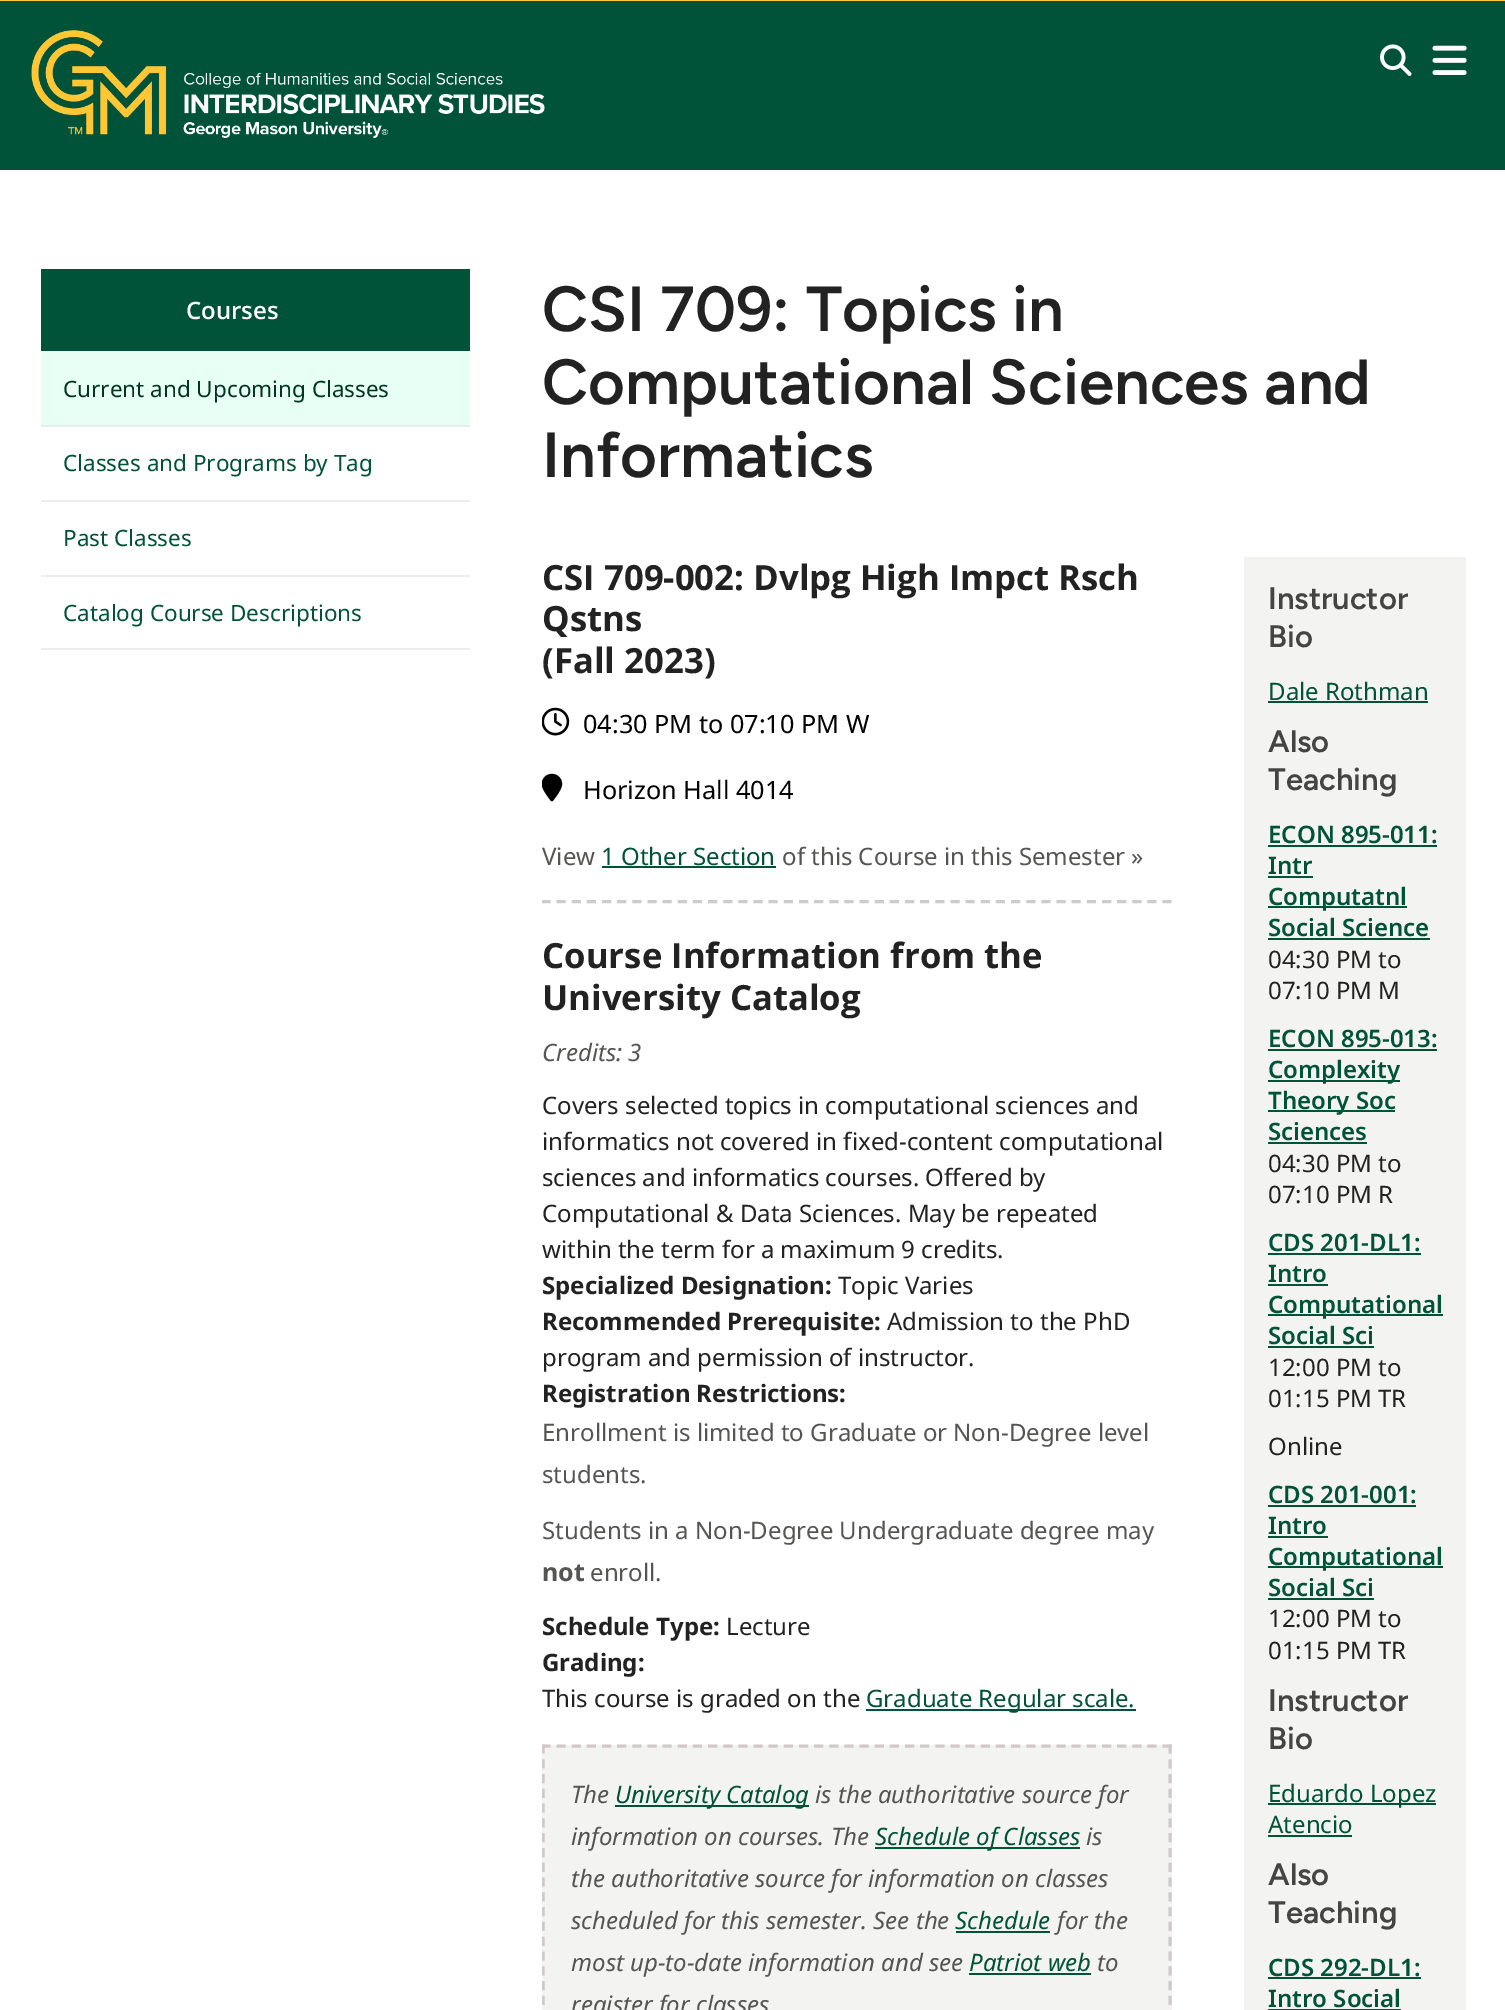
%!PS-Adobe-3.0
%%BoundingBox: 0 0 1505 2010
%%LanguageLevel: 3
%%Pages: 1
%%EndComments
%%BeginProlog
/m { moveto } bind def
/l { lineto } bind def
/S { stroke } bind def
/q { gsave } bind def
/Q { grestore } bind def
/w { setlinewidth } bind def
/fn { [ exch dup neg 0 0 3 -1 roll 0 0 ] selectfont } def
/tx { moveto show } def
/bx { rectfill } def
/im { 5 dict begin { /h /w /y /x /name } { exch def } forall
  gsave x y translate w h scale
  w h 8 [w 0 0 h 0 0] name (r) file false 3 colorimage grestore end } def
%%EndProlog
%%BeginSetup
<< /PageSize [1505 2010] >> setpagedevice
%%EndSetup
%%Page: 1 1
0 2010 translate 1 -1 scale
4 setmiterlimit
1 setgray
0 0 1505 2010 bx
0.922 0.933 0.929 setrgbcolor
41 426 429 1 bx
0 0.322 0.224 setrgbcolor
0 1 1505 169 bx
0.996 0.78 0.204 setrgbcolor
0 0 1505 1 bx
(image0.raw) 31 30 514 108 im
(image1.raw) 1380 44 32 32 im
(image2.raw) 1432 45 35 30 im
0 0.322 0.224 setrgbcolor
41 269 429 82 bx
/OpenSans-SemiBold 24 fn
1 setgray
(Courses) 186 319 tx
0.91 1 0.965 setrgbcolor
41 351 429 74 bx
0.867 0.933 0.91 setrgbcolor
41 425 429 1 bx
/NotoSans-Regular 22.5 fn
0 0.212 0.129 setrgbcolor
(Current and Upcoming Classes) 63 397 tx
0.922 0.933 0.929 setrgbcolor
41 500 429 2 bx
0 0.322 0.224 setrgbcolor
(Classes and Programs by Tag) 63 471 tx
0.922 0.933 0.929 setrgbcolor
41 575 429 2 bx
0 0.322 0.224 setrgbcolor
(Past Classes) 63 546 tx
0.922 0.933 0.929 setrgbcolor
41 648 429 2 bx
0 0.322 0.224 setrgbcolor
(Catalog Course Descriptions) 63 621 tx
/Figtree-SemiBold 63.6 fn
0.133 setgray
(CSI 709: Topics in) 542 331 tx
(Computational Sciences and) 542 404 tx
(Informatics) 542 477 tx
/OpenSans-Bold 34.75 fn
(CSI 709-002: Dvlpg High Impct Rsch) 542 590 tx
(Qstns) 542 631 tx
(\(Fall 2023\)) 542 673 tx
(image3.raw) 542 707 28 29 im
/NotoSans-Regular 25.25 fn
0 setgray
(04:30 PM to 07:10 PM W) 583 733 tx
(image4.raw) 542 773 21 29 im
(Horizon Hall 4014) 583 799 tx
/NotoSans-Regular 24 fn
0.333 0.333 0.325 setrgbcolor
(View) 542 865 tx
0 0.322 0.224 setrgbcolor
(1 Other Section) 601 865 tx
602 866 174 2 bx
0.333 0.333 0.325 setrgbcolor
(of this Course in this Semester ») 782 865 tx
q
542 557 678 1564 rectclip
0.8 setgray
3 w
[9 6.15] 0 setdash
541.5 901.5 m 1171.5 901.5 l S
Q
/OpenSans-Bold 34.75 fn
0.133 setgray
(Course Information from the) 542 968 tx
(University Catalog) 542 1010 tx
/NotoSans-Italic 24 fn
0.333 0.333 0.325 setrgbcolor
(Credits: 3) 542 1061 tx
/NotoSans-Regular 24 fn
0.133 setgray
(Covers selected topics in computational sciences and) 542 1114 tx
(informatics not covered in fixed-content computational) 542 1150 tx
(sciences and informatics courses. Offered by) 542 1186 tx
(Computational & Data Sciences. May be repeated) 542 1222 tx
(within the term for a maximum 9 credits.) 542 1258 tx
/NotoSans-Bold 24 fn
(Specialized Designation:) 542 1294 tx
/NotoSans-Regular 24 fn
(Topic Varies) 838 1294 tx
/NotoSans-Bold 24 fn
(Recommended Prerequisite:) 542 1330 tx
/NotoSans-Regular 24 fn
(Admission to the PhD) 887 1330 tx
(program and permission of instructor.) 542 1366 tx
/NotoSans-Bold 24 fn
(Registration Restrictions:) 542 1402 tx
/NotoSans-Regular 24 fn
0.333 0.333 0.325 setrgbcolor
(Enrollment is limited to Graduate or Non-Degree level) 542 1441 tx
(students.) 542 1483 tx
(Students in a Non-Degree Undergraduate degree may) 542 1539 tx
/NotoSans-Bold 25 fn
(not) 542 1581 tx
/NotoSans-Regular 24 fn
(enroll.) 590 1581 tx
/NotoSans-Bold 24 fn
0.133 setgray
(Schedule Type:) 542 1635 tx
/NotoSans-Regular 24 fn
(Lecture) 726 1635 tx
/NotoSans-Bold 24 fn
(Grading:) 542 1671 tx
/NotoSans-Regular 24 fn
(This course is graded on the) 542 1707 tx
0 0.322 0.224 setrgbcolor
866 1709 270 2 bx
(Graduate Regular scale.) 866 1707 tx
0.953 0.953 0.945 setrgbcolor
542 1745 630 265 bx
q
542 557 678 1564 rectclip
0.82 0.788 0.788 setrgbcolor
3 w
[9 6.15] 0 setdash
541.5 1746 m 1171.5 1746 l S
Q
0.82 0.788 0.788 setrgbcolor
3 w
[9 5.79] 0 setdash
1170 1744.5 m 1170 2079 l S
q
542 557 678 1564 rectclip
543 1744.5 m 543 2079 l S
Q
/NotoSans-Italic 24 fn
0.333 0.333 0.325 setrgbcolor
(The) 571 1803 tx
0 0.322 0.224 setrgbcolor
615 1805 194 2 bx
(University Catalog) 615 1803 tx
0.333 0.333 0.325 setrgbcolor
(is the authoritative source for) 815 1803 tx
(information on courses. The) 571 1845 tx
0 0.322 0.224 setrgbcolor
875 1847 205 2 bx
(Schedule of Classes) 875 1845 tx
0.333 0.333 0.325 setrgbcolor
(is) 1086 1845 tx
(the authoritative source for information on classes) 571 1887 tx
(scheduled for this semester. See the) 571 1929 tx
0 0.322 0.224 setrgbcolor
(Schedule) 955 1929 tx
956 1931 94 2 bx
0.333 0.333 0.325 setrgbcolor
(for the) 1057 1929 tx
(most up-to-date information and see) 571 1971 tx
0 0.322 0.224 setrgbcolor
(Patriot web) 969 1971 tx
969 1973 122 2 bx
0.333 0.333 0.325 setrgbcolor
(to) 1097 1971 tx
(register for classes) 571 2013 tx
0.953 0.953 0.945 setrgbcolor
1244 557 222 1453 bx
/Figtree-SemiBold 31 fn
0.267 setgray
(Instructor) 1268 609 tx
(Bio) 1268 647 tx
/NotoSans-Regular 24 fn
0 0.322 0.224 setrgbcolor
(Dale Rothman) 1268 700 tx
1268 701 160 2 bx
/Figtree-SemiBold 31 fn
0.267 setgray
(Also) 1268 752 tx
(Teaching) 1268 790 tx
/NotoSans-SemiBold 24 fn
0 0.322 0.224 setrgbcolor
(ECON 895-011:) 1268 843 tx
1268 845 169 2 bx
(Intr) 1268 874 tx
1268 876 45 2 bx
1268 906 139 2 bx
(Computatnl) 1268 905 tx
(Social Science) 1268 936 tx
1268 938 162 2 bx
/NotoSans-Regular 24 fn
0.133 setgray
(04:30 PM to) 1268 968 tx
(07:10 PM M) 1268 999 tx
/NotoSans-SemiBold 24 fn
0 0.322 0.224 setrgbcolor
(ECON 895-013:) 1268 1047 tx
1268 1049 169 2 bx
1268 1080 132 2 bx
(Complexity) 1268 1078 tx
1268 1110 127 2 bx
(Theory Soc) 1268 1109 tx
(Sciences) 1268 1140 tx
1268 1142 99 2 bx
/NotoSans-Regular 24 fn
0.133 setgray
(04:30 PM to) 1268 1172 tx
(07:10 PM R) 1268 1203 tx
/NotoSans-SemiBold 24 fn
0 0.322 0.224 setrgbcolor
(CDS 201-DL1:) 1268 1251 tx
1268 1253 153 2 bx
(Intro) 1268 1282 tx
1268 1284 60 2 bx
1268 1314 175 2 bx
(Computational) 1268 1313 tx
(Social Sci) 1268 1344 tx
1268 1346 106 2 bx
/NotoSans-Regular 24 fn
0.133 setgray
(12:00 PM to) 1268 1376 tx
(01:15 PM TR) 1268 1407 tx
(Online) 1268 1455 tx
/NotoSans-SemiBold 24 fn
0 0.322 0.224 setrgbcolor
(CDS 201-001:) 1268 1503 tx
1268 1505 148 2 bx
(Intro) 1268 1534 tx
1268 1536 60 2 bx
1268 1566 175 2 bx
(Computational) 1268 1565 tx
(Social Sci) 1268 1596 tx
1268 1598 106 2 bx
/NotoSans-Regular 24 fn
0.133 setgray
(12:00 PM to) 1268 1627 tx
(01:15 PM TR) 1268 1659 tx
/Figtree-SemiBold 31 fn
0.267 setgray
(Instructor) 1268 1711 tx
(Bio) 1268 1749 tx
0 0.322 0.224 setrgbcolor
1268 1803 168 2 bx
/NotoSans-Regular 24 fn
(Eduardo Lopez) 1268 1802 tx
(Atencio) 1268 1833 tx
1268 1835 84 2 bx
/Figtree-SemiBold 31 fn
0.267 setgray
(Also) 1268 1885 tx
(Teaching) 1268 1923 tx
/NotoSans-SemiBold 24 fn
0 0.322 0.224 setrgbcolor
(CDS 292-DL1:) 1268 1976 tx
1268 1977 153 2 bx
(Intro Social) 1268 2007 tx
1268 2009 133 1 bx
showpage
%%EOF
